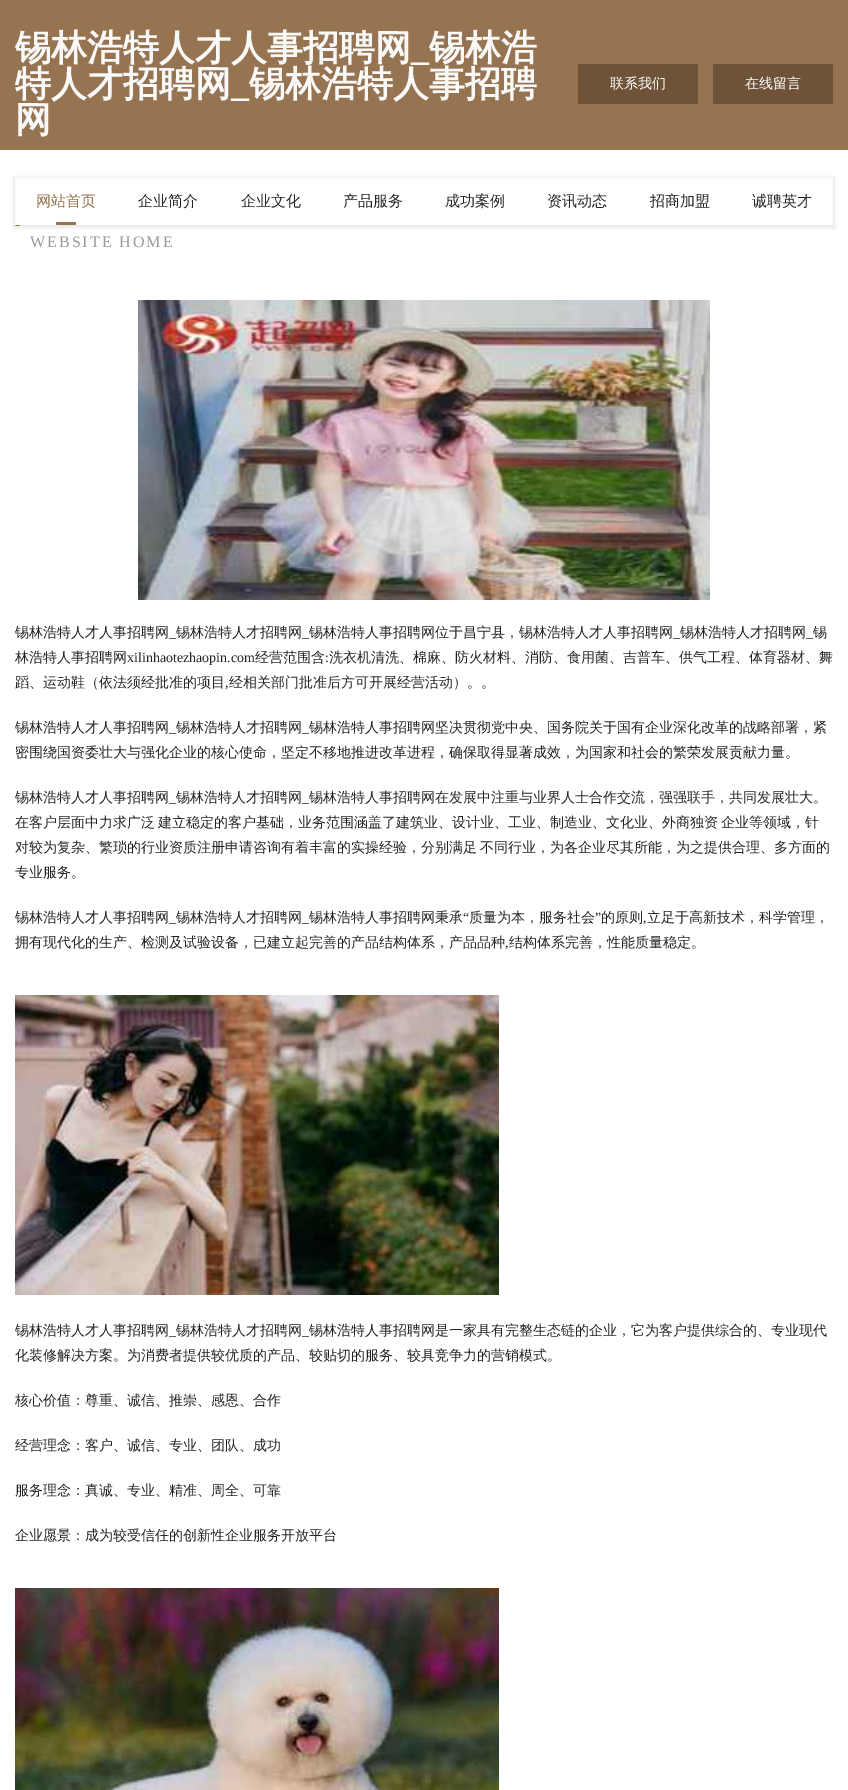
%!PS-Adobe-3.0
%%BoundingBox: 0 0 848 1790
%%LanguageLevel: 3
%%Pages: 1
%%EndComments
%%BeginProlog
/m { moveto } bind def
/f { fill } bind def
/fn { [ exch dup neg 0 0 3 -1 roll 0 0 ] selectfont } def
/tx { moveto show } def
/bx { rectfill } def
/al { dup .setfillconstantalpha .setstrokeconstantalpha } def
/rr { 5 dict begin { /r /h /w /y /x } { exch def } forall
  x r add y moveto x w add y 2 copy h add r arct x w add y h add x 1 index r arct
  x y h add x y r arct x y 2 copy exch w add exch r arct closepath end } def
/sh { 12 dict begin { /a /b /q /h /w /y /x } { exch def } forall gsave /was 0 def
  9 -2 -9 { dup b mul 4 div /e exch def 1 sub .425 mul 2.718 exch exp 1 add a .99 .min exch div /now exch def
    1 1 now sub 1 was sub div sub al /was now def
    w h .min e 2 mul add 0 gt { x e sub y e sub w e 2 mul add h e 2 mul add
      q e add b .6 mul add w h .min 2 div e add .min 0 .max rr fill } if } for grestore end } def
/im { 5 dict begin { /h /w /y /x /name } { exch def } forall
  gsave x y translate w h scale
  w h 8 [w 0 0 h 0 0] name (r) file false 3 colorimage grestore end } def
%%EndProlog
%%BeginSetup
<< /PageSize [848 1790] /PageUsesTransparency true >> setpagedevice
%%EndSetup
%%Page: 1 1
0 .pushpdf14devicefilter
0 1790 translate 1 -1 scale
4 setmiterlimit
1 setgray
0 0 848 1790 bx
0.592 0.455 0.318 setrgbcolor
0 0 848 150 bx
/WenQuanYiZenHei-Bold 36 fn
0.976 setgray
(锡林浩特人才人事招聘网) 15 60 tx
/LiberationSerif-Bold 36 fn
(_) 411 60 tx
/WenQuanYiZenHei-Bold 36 fn
(锡林浩) 429 60 tx
(特人才招聘网) 15 96 tx
/LiberationSerif-Bold 36 fn
(_) 231 96 tx
/WenQuanYiZenHei-Bold 36 fn
(锡林浩特人事招聘) 249 96 tx
(网) 15 132 tx
0.435 0.325 0.22 setrgbcolor
578 64 120 40 2 rr f
/WenQuanYiZenHei-Medium 14 fn
1 setgray
(联系我们) 610 88 tx
0.435 0.325 0.22 setrgbcolor
713 64 120 40 2 rr f
1 setgray
(在线留言) 745 88 tx
0.592 0.455 0.318 setrgbcolor
15 200 5 26 2 rr f
0 setgray
13 177 822 51 0 1.5 0.08 sh
1 setgray
15 178 818 47 bx
/WenQuanYiZenHei-Medium 15 fn
0.592 0.455 0.318 setrgbcolor
(网站首页) 36 206 tx
56 222 20 3 1.5 rr f
0.137 setgray
(企业简介) 138 206 tx
(企业文化) 241 206 tx
(产品服务) 343 206 tx
(成功案例) 445 206 tx
(资讯动态) 547 206 tx
(招商加盟) 650 206 tx
(诚聘英才) 752 206 tx
/LiberationSerif-Regular 16 fn
0.596 setgray
30 247 m 2 0 (WEBSITE HOME) ashow
(image0.raw) 138 300 572 300 im
/WenQuanYiZenHei-Medium 14 fn
0.137 setgray
(锡林浩特人才人事招聘网) 15 637 tx
/LiberationSerif-Regular 14 fn
(_) 169 637 tx
/WenQuanYiZenHei-Medium 14 fn
(锡林浩特人才招聘网) 176 637 tx
/LiberationSerif-Regular 14 fn
(_) 302 637 tx
/WenQuanYiZenHei-Medium 14 fn
(锡林浩特人事招聘网位于昌宁县，锡林浩特人才人事招聘网) 309 637 tx
/LiberationSerif-Regular 14 fn
(_) 673 637 tx
/WenQuanYiZenHei-Medium 14 fn
(锡林浩特人才招聘网) 680 637 tx
/LiberationSerif-Regular 14 fn
(_) 806 637 tx
/WenQuanYiZenHei-Medium 14 fn
(锡) 813 637 tx
(林浩特人事招聘网) 15 662 tx
/LiberationSerif-Regular 14 fn
(xilinhaotezhaopin.com) 127 662 tx
/WenQuanYiZenHei-Medium 14 fn
(经营范围含) 255 662 tx
/LiberationSerif-Regular 14 fn
(:) 325 662 tx
/WenQuanYiZenHei-Medium 14 fn
(洗衣机清洗、棉麻、防火材料、消防、食用菌、吉普车、供气工程、体育器材、舞) 329 662 tx
(蹈、运动鞋（依法须经批准的项目) 15 687 tx
/LiberationSerif-Regular 14 fn
(,) 225 687 tx
/WenQuanYiZenHei-Medium 14 fn
(经相关部门批准后方可开展经营活动）。。) 229 687 tx
(锡林浩特人才人事招聘网) 15 732 tx
/LiberationSerif-Regular 14 fn
(_) 169 732 tx
/WenQuanYiZenHei-Medium 14 fn
(锡林浩特人才招聘网) 176 732 tx
/LiberationSerif-Regular 14 fn
(_) 302 732 tx
/WenQuanYiZenHei-Medium 14 fn
(锡林浩特人事招聘网坚决贯彻党中央、国务院关于国有企业深化改革的战略部署，紧) 309 732 tx
(密围绕国资委壮大与强化企业的核心使命，坚定不移地推进改革进程，确保取得显著成效，为国家和社会的繁荣发展贡献力量。) 15 757 tx
(锡林浩特人才人事招聘网) 15 802 tx
/LiberationSerif-Regular 14 fn
(_) 169 802 tx
/WenQuanYiZenHei-Medium 14 fn
(锡林浩特人才招聘网) 176 802 tx
/LiberationSerif-Regular 14 fn
(_) 302 802 tx
/WenQuanYiZenHei-Medium 14 fn
(锡林浩特人事招聘网在发展中注重与业界人士合作交流，强强联手，共同发展壮大。) 309 802 tx
15 827 m -1 0 32 (在客户层面中力求广泛 建立稳定的客户基础，业务范围涵盖了建筑业、设计业、工业、制造业、文化业、外商独资 企业等领域，针) widthshow
15 852 m -1 0 32 (对较为复杂、繁琐的行业资质注册申请咨询有着丰富的实操经验，分别满足 不同行业，为各企业尽其所能，为之提供合理、多方面的) widthshow
(专业服务。) 15 877 tx
(锡林浩特人才人事招聘网) 15 922 tx
/LiberationSerif-Regular 14 fn
(_) 169 922 tx
/WenQuanYiZenHei-Medium 14 fn
(锡林浩特人才招聘网) 176 922 tx
/LiberationSerif-Regular 14 fn
(_) 302 922 tx
/WenQuanYiZenHei-Medium 14 fn
(锡林浩特人事招聘网秉承) 309 922 tx
/LiberationSerif-Regular 14 fn
(“) 463 922 tx
/WenQuanYiZenHei-Medium 14 fn
(质量为本，服务社会) 469 922 tx
/LiberationSerif-Regular 14 fn
(”) 595 922 tx
/WenQuanYiZenHei-Medium 14 fn
(的原则) 601 922 tx
(立足于高新技术，科学管理，) 647 922 tx
/LiberationSerif-Regular 14 fn
(,) 643 922 tx
/WenQuanYiZenHei-Medium 14 fn
(拥有现代化的生产、检测及试验设备，已建立起完善的产品结构体系，产品品种) 15 947 tx
/LiberationSerif-Regular 14 fn
(,) 505 947 tx
/WenQuanYiZenHei-Medium 14 fn
(结构体系完善，性能质量稳定。) 509 947 tx
(image1.raw) 15 995 484 300 im
(锡林浩特人才人事招聘网) 15 1335 tx
/LiberationSerif-Regular 14 fn
(_) 169 1335 tx
/WenQuanYiZenHei-Medium 14 fn
(锡林浩特人才招聘网) 176 1335 tx
/LiberationSerif-Regular 14 fn
(_) 302 1335 tx
/WenQuanYiZenHei-Medium 14 fn
(锡林浩特人事招聘网是一家具有完整生态链的企业，它为客户提供综合的、专业现代) 309 1335 tx
(化装修解决方案。为消费者提供较优质的产品、较贴切的服务、较具竞争力的营销模式。) 15 1360 tx
(核心价值：尊重、诚信、推崇、感恩、合作) 15 1405 tx
(经营理念：客户、诚信、专业、团队、成功) 15 1450 tx
(服务理念：真诚、专业、精准、周全、可靠) 15 1495 tx
(企业愿景：成为较受信任的创新性企业服务开放平台) 15 1540 tx
(image2.raw) 15 1588 484 202 im
.poppdf14devicefilter showpage
%%EOF
